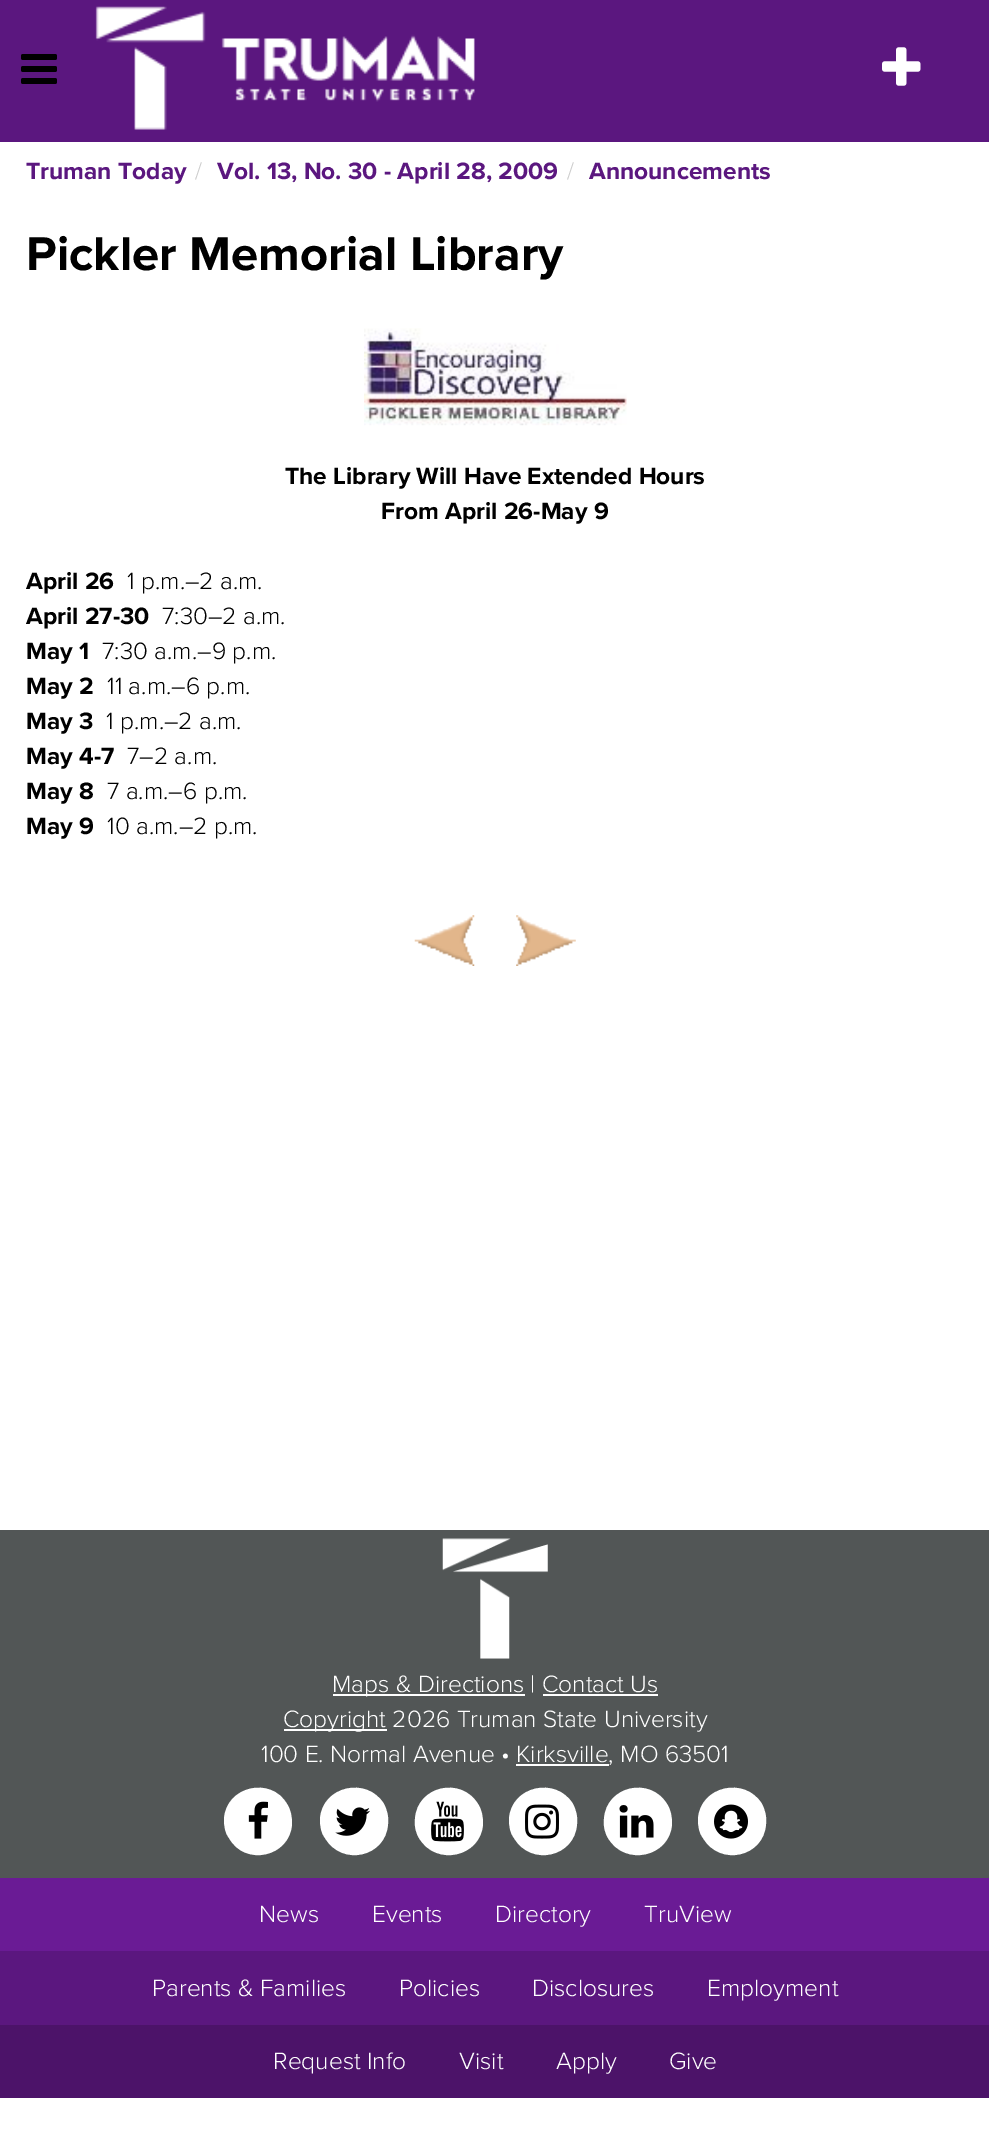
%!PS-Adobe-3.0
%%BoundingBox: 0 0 989 2138
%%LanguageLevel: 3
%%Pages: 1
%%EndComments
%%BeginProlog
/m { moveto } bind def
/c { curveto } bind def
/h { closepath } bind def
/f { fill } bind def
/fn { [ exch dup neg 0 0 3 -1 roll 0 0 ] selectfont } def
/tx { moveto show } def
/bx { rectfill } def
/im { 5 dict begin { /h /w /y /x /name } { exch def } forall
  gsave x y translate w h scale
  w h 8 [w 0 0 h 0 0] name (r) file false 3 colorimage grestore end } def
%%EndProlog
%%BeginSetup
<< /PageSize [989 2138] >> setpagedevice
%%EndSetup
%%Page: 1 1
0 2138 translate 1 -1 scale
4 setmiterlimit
1 setgray
0 0 989 2138 bx
0.357 0.09 0.498 setrgbcolor
0 0 989 142 bx
(image0.raw) 21 54 36 30 im
(image1.raw) 95 6 380 124 im
(image2.raw) 882 47 39 39 im
/ProximaNova-Bold 24.5 fn
(Truman Today) 26 179 tx
/ProximaNova-Light 24.5 fn
0.8 setgray
(/) 195 179 tx
/ProximaNova-Bold 24.5 fn
0.357 0.09 0.498 setrgbcolor
(Vol. 13, No. 30 - April 28, 2009) 217 179 tx
/ProximaNova-Light 24.5 fn
0.8 setgray
(/) 567 179 tx
/ProximaNova-Bold 24.5 fn
0.357 0.09 0.498 setrgbcolor
(Announcements) 589 179 tx
/ProximaNova-Bold 49 fn
0 setgray
(Pickler Memorial Library) 26 270 tx
(image3.raw) 364 328 263 98 im
/ProximaNova-Bold 24.5 fn
(The Library Will Have Extended Hours) 285 484 tx
(From April 26-May 9) 381 519 tx
(April 26) 26 589 tx
/ProximaNova-Light 24.5 fn
(1 p.m.–2 a.m.) 127 589 tx
/ProximaNova-Bold 24.5 fn
(April 27-30) 26 624 tx
/ProximaNova-Light 24.5 fn
(7:30–2 a.m.) 162 624 tx
/ProximaNova-Bold 24.5 fn
(May 1) 26 659 tx
/ProximaNova-Light 24.5 fn
(7:30 a.m.–9 p.m.) 102 659 tx
/ProximaNova-Bold 24.5 fn
(May 2) 26 694 tx
/ProximaNova-Light 24.5 fn
(11 a.m.–6 p.m.) 107 694 tx
/ProximaNova-Bold 24.5 fn
(May 3) 26 729 tx
/ProximaNova-Light 24.5 fn
(1 p.m.–2 a.m.) 106 729 tx
/ProximaNova-Bold 24.5 fn
(May 4-7) 26 764 tx
/ProximaNova-Light 24.5 fn
(7–2 a.m.) 127 764 tx
/ProximaNova-Bold 24.5 fn
(May 8) 26 799 tx
/ProximaNova-Light 24.5 fn
(7 a.m.–6 p.m.) 107 799 tx
/ProximaNova-Bold 24.5 fn
(May 9) 26 834 tx
/ProximaNova-Light 24.5 fn
(10 a.m.–2 p.m.) 107 834 tx
(image4.raw) 414 915 61 51 im
(image5.raw) 516 915 60 51 im
0.322 0.337 0.337 setrgbcolor
0 1530 989 348 bx
(image6.raw) 442 1538 106 121 im
1 setgray
333 1694 192 2 bx
(Maps & Directions | Contact Us) 332 1692 tx
543 1694 115 2 bx
284 1729 103 2 bx
(Copyright 2026 Truman State University) 283 1727 tx
(100 E. Normal Avenue • Kirksville, MO 63501) 261 1762 tx
516 1764 93 2 bx
287 1804 m 291 1810 292 1817 292 1824 c 290 1857 245 1867 229 1838 c 225 1833 224 1826 224 1819 c 226 1786 271 1776 287 1804 c h f
(image7.raw) 248 1801 20 38 im
384 1804 m 387 1810 389 1817 388 1824 c 386 1857 342 1867 325 1838 c 321 1833 320 1826 320 1819 c 322 1786 367 1776 384 1804 c h f
(image8.raw) 335 1807 35 29 im
478 1804 m 482 1810 483 1817 483 1824 c 481 1857 436 1867 419 1838 c 416 1833 414 1826 415 1819 c 417 1786 461 1776 478 1804 c h f
(image9.raw) 431 1801 33 41 im
573 1804 m 576 1810 578 1817 577 1824 c 575 1857 531 1867 514 1838 c 510 1833 509 1826 509 1819 c 511 1786 556 1776 573 1804 c h f
(image10.raw) 525 1804 34 35 im
667 1804 m 671 1810 672 1817 672 1824 c 670 1857 625 1867 608 1838 c 605 1833 603 1826 604 1819 c 606 1786 650 1776 667 1804 c h f
(image11.raw) 619 1805 35 33 im
762 1804 m 765 1810 767 1817 766 1824 c 764 1857 720 1867 703 1838 c 699 1833 698 1826 698 1819 c 700 1786 745 1776 762 1804 c h f
(image12.raw) 714 1804 34 35 im
0.416 0.106 0.584 setrgbcolor
0 1878 989 73 bx
1 setgray
(News) 259 1922 tx
(Events) 372 1922 tx
(Directory) 495 1922 tx
(TruView) 644 1922 tx
0.357 0.09 0.498 setrgbcolor
0 1951 989 74 bx
1 setgray
(Parents & Families) 152 1996 tx
(Policies) 399 1996 tx
(Disclosures) 532 1996 tx
(Employment) 707 1996 tx
0.298 0.075 0.412 setrgbcolor
0 2025 989 73 bx
1 setgray
(Request Info) 273 2069 tx
(Visit) 459 2069 tx
(Apply) 556 2069 tx
(Give) 669 2069 tx
showpage
%%EOF
